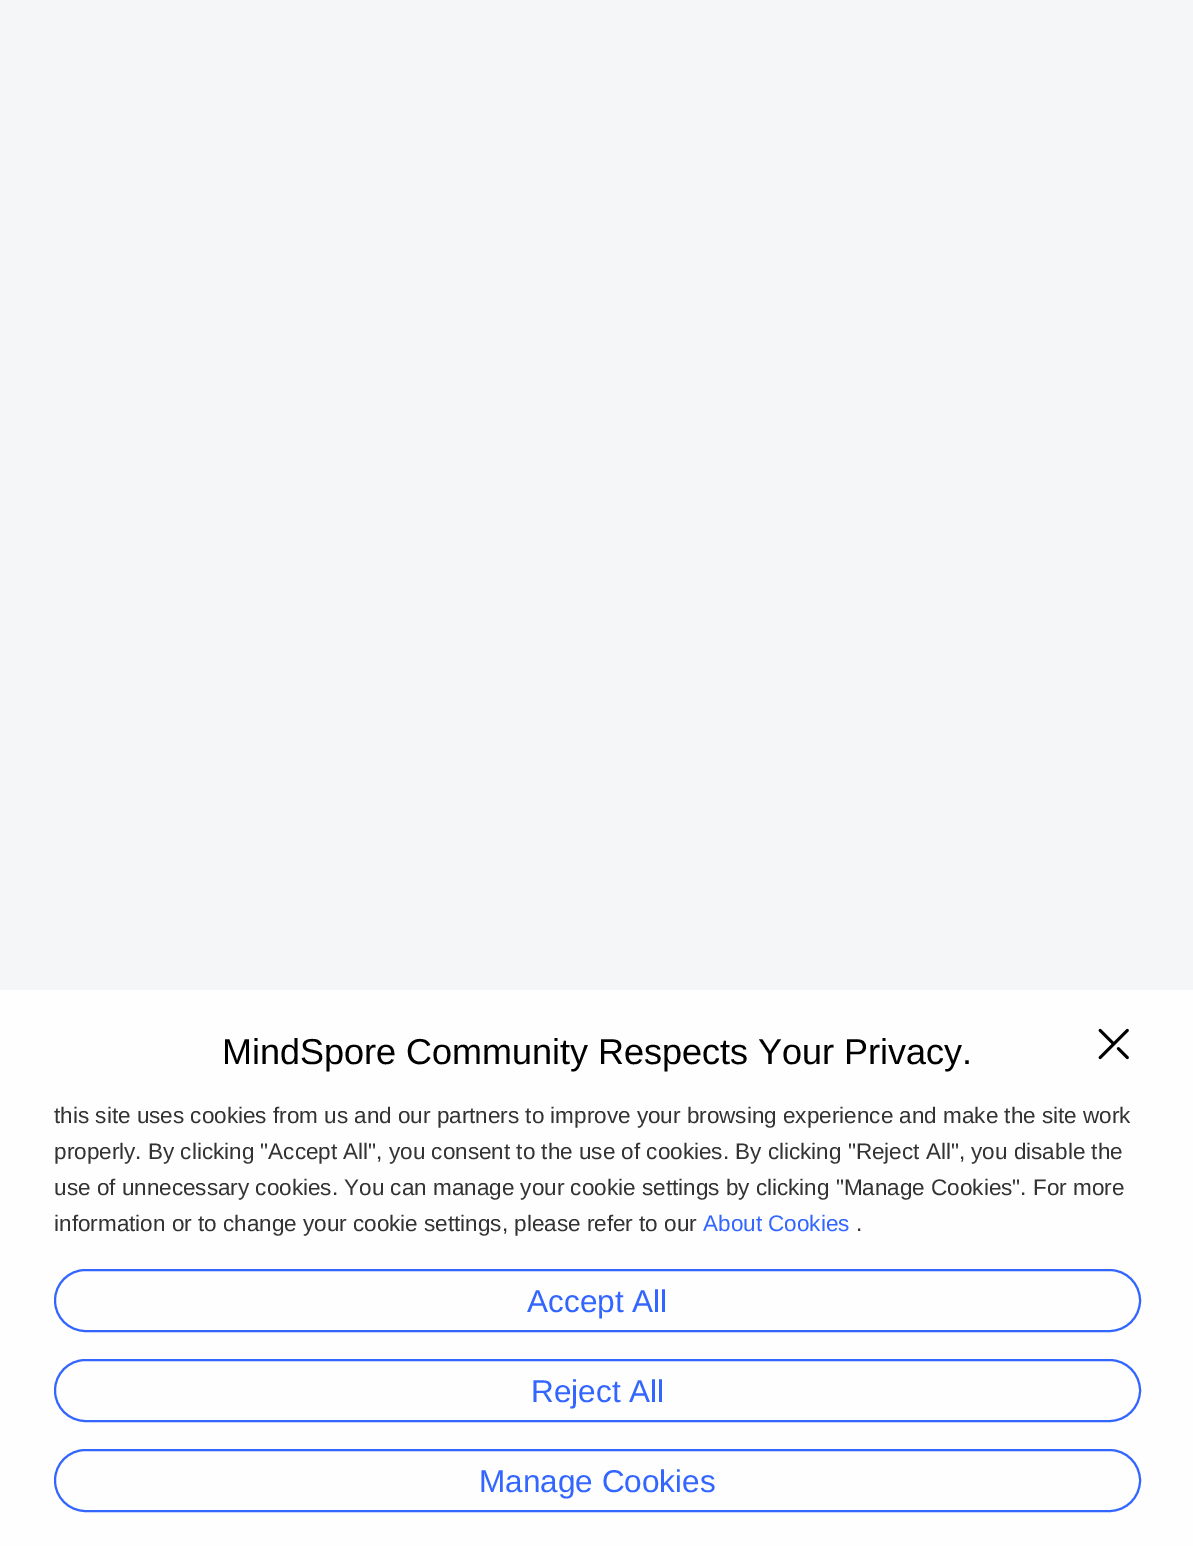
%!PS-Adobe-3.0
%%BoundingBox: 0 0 1193 1546
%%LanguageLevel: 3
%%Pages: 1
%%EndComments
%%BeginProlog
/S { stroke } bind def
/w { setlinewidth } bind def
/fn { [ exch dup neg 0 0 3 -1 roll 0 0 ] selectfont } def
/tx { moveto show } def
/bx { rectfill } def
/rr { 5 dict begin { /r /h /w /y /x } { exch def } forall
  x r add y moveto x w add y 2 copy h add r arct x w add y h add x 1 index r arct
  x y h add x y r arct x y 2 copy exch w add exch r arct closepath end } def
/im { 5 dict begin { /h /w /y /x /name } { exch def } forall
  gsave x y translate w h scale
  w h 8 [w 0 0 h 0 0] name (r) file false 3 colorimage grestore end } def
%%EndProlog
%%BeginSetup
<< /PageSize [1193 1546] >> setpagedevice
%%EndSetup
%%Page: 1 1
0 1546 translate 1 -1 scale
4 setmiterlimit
0.961 0.965 0.973 setrgbcolor
0 0 1193 1546 bx
0.996 setgray
0 990 1193 556 bx
(image0.raw) 1098 1028 31 32 im
/LiberationSans-Regular 36 fn
0 setgray
(MindSpore Community Respects Your Privacy.) 222 1064 tx
/LiberationSans-Regular 22.5 fn
0.2 setgray
(this site uses cookies from us and our partners to improve your browsing experience and make the site work) 54 1123 tx
(properly. By clicking "Accept All", you consent to the use of cookies. By clicking "Reject All", you disable the) 54 1159 tx
(use of unnecessary cookies. You can manage your cookie settings by clicking "Manage Cookies". For more) 54 1195 tx
(information or to change your cookie settings, please refer to our) 54 1231 tx
0.2 0.4 1 setrgbcolor
(About Cookies) 703 1231 tx
0.2 setgray
(.) 856 1231 tx
0.2 0.4 1 setrgbcolor
2 w
55 1270 1085 61 30.5 rr S
/LiberationSans-Regular 31.5 fn
(Accept All) 527 1312 tx
55 1360 1085 61 30.5 rr S
(Reject All) 531 1402 tx
55 1450 1085 61 30.5 rr S
(Manage Cookies) 479 1492 tx
showpage
%%EOF
